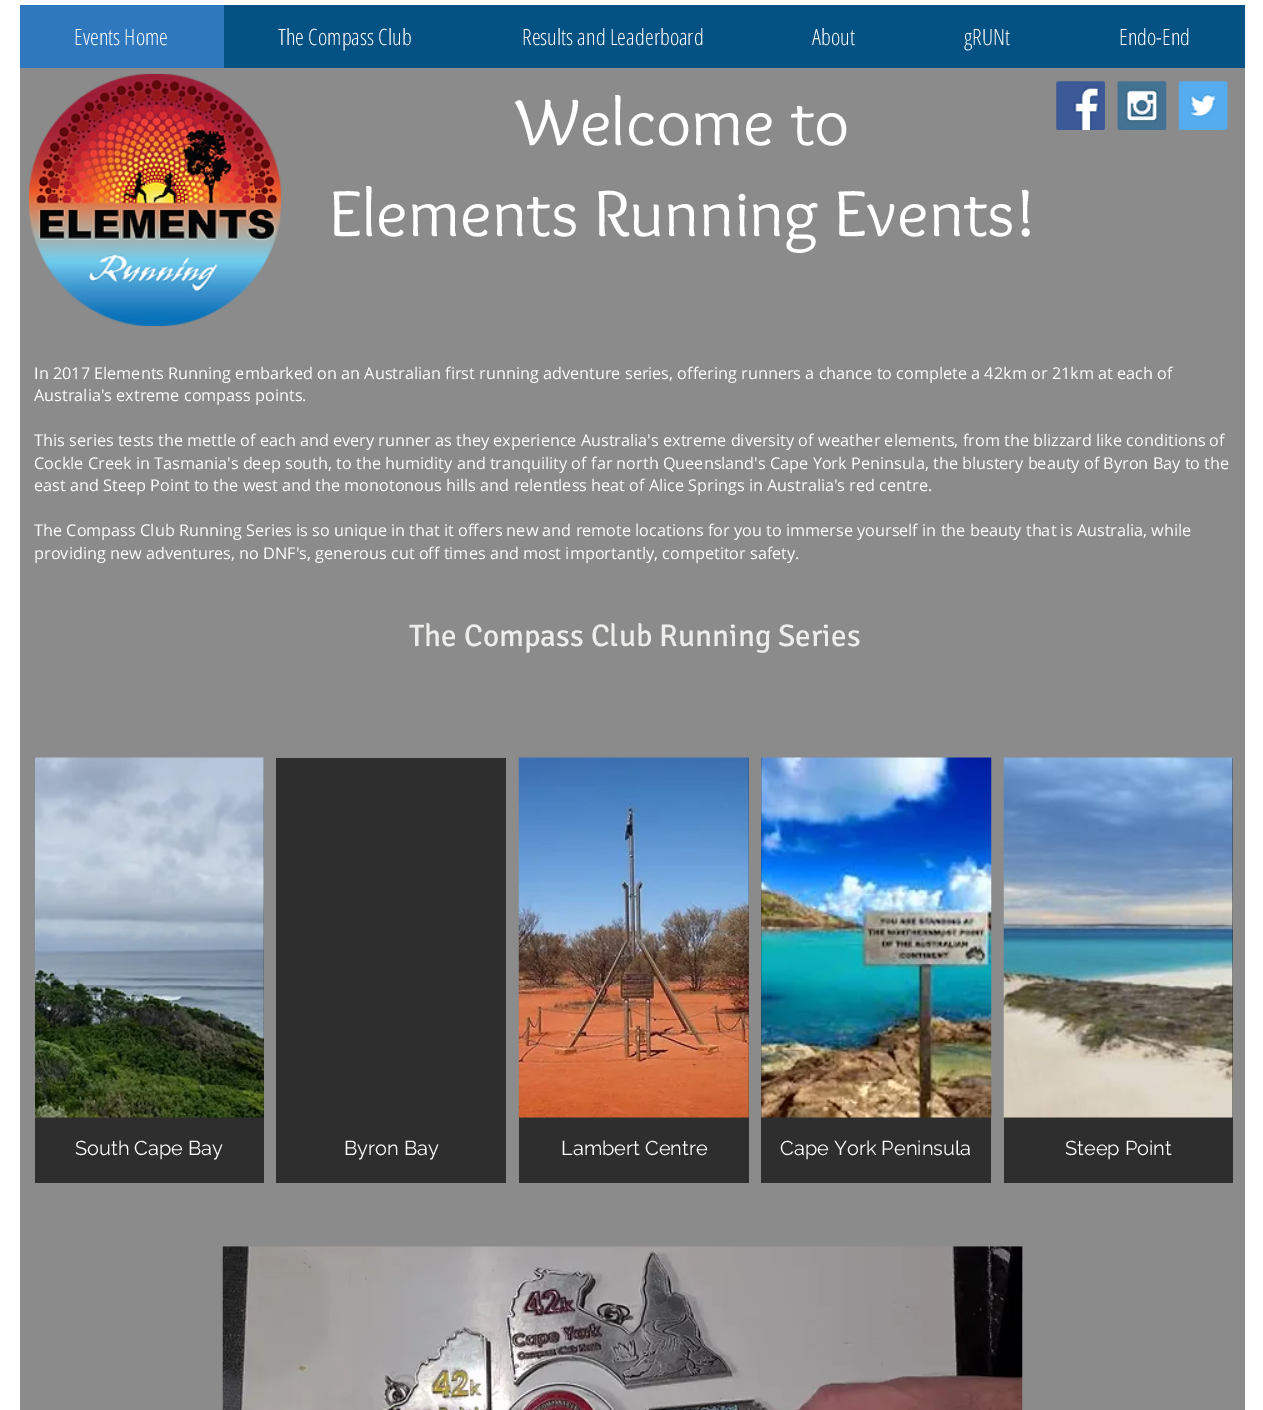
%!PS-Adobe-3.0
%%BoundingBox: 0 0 1263 1410
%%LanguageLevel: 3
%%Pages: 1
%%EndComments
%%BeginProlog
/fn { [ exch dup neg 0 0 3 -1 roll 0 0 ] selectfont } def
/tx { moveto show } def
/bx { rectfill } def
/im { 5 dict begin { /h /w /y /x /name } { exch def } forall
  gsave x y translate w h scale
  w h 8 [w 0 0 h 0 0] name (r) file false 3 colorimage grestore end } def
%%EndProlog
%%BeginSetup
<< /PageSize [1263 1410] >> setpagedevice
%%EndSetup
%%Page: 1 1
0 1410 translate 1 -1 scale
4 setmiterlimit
1 setgray
0 0 1263 1410 bx
0.188 0.471 0.745 setrgbcolor
20 5 204 63 bx
/OpenSansCondensed-Light 22.5 fn
1 setgray
(Events Home) 74 45 tx
0.016 0.318 0.518 setrgbcolor
224 5 1021 63 bx
1 setgray
(The Compass Club) 278 45 tx
(Results and Leaderboard) 522 45 tx
(About) 812 45 tx
(gRUNt) 964 45 tx
(Endo-End) 1119 45 tx
0.545 setgray
20 68 1225 1342 bx
(image0.raw) 28 73 254 254 im
/Overlock-Regular 67.5 fn
1 setgray
(Welcome to) 516 145 tx
(Elements Running Events!) 329 236 tx
(image1.raw) 1056 81 49 49 im
(image2.raw) 1117 81 50 49 im
(image3.raw) 1178 81 50 49 im
/OpenSans-Regular 16.25 fn
(In 2017 Elements Running embarked on an Australian first running adventure series, offering runners a chance to complete a 42km or 21km at each of) 34 379 tx
(Australia's extreme compass points.) 34 401 tx
(This series tests the mettle of each and every runner as they experience Australia's extreme diversity of weather elements, from the blizzard like conditions of) 34 446 tx
(Cockle Creek in Tasmania's deep south, to the humidity and tranquility of far north Queensland's Cape York Peninsula, the blustery beauty of Byron Bay to the) 34 469 tx
(east and Steep Point to the west and the monotonous hills and relentless heat of Alice Springs in Australia's red centre.) 34 491 tx
(The Compass Club Running Series is so unique in that it offers new and remote locations for you to immerse yourself in the beauty that is Australia, while) 34 536 tx
(providing new adventures, no DNF's, generous cut off times and most importantly, competitor safety.) 34 559 tx
/Signika-Regular 31.25 fn
0.929 0.929 0.925 setrgbcolor
(The Compass Club Running Series) 409 646 tx
0.184 0.18 0.18 setrgbcolor
35 758 229 425 bx
(image4.raw) 35 757 229 361 im
/Raleway-Regular 20 fn
1 setgray
(South Cape Bay) 75 1155 tx
0.184 0.18 0.18 setrgbcolor
276 758 230 425 bx
1 setgray
(Byron Bay) 344 1155 tx
0.184 0.18 0.18 setrgbcolor
519 758 230 425 bx
(image5.raw) 518 757 231 361 im
1 setgray
(Lambert Centre) 561 1155 tx
0.184 0.18 0.18 setrgbcolor
761 758 230 425 bx
(image6.raw) 761 757 231 361 im
1 setgray
(Cape York Peninsula) 780 1155 tx
0.184 0.18 0.18 setrgbcolor
1004 758 229 425 bx
(image7.raw) 1003 757 230 361 im
1 setgray
(Steep Point) 1065 1155 tx
(image8.raw) 222 1246 801 164 im
showpage
%%EOF
